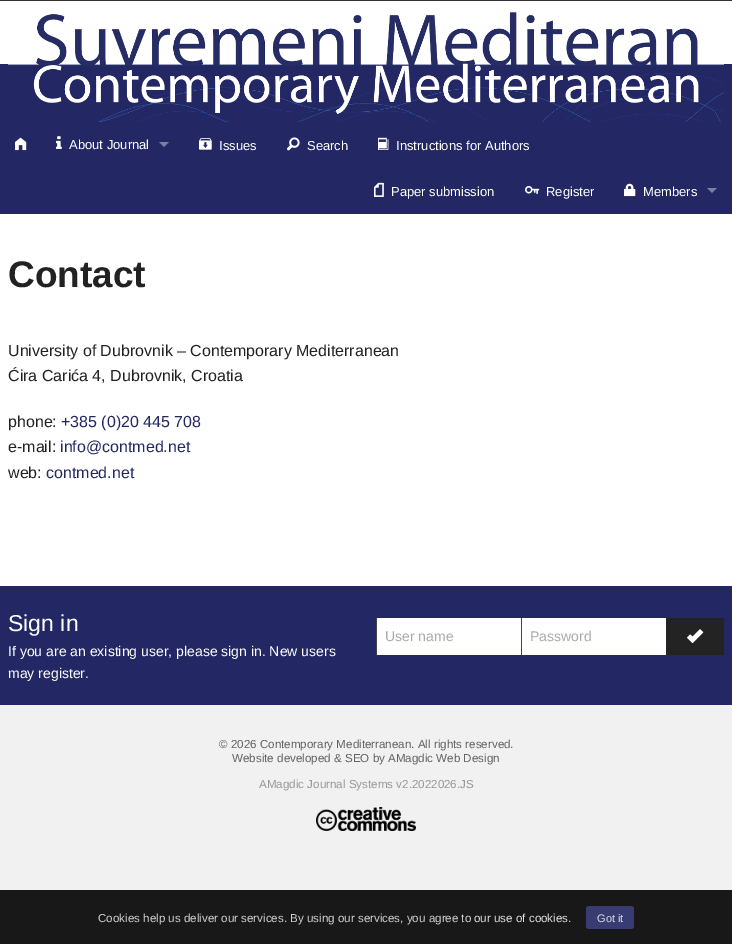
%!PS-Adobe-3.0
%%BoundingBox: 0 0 732 944
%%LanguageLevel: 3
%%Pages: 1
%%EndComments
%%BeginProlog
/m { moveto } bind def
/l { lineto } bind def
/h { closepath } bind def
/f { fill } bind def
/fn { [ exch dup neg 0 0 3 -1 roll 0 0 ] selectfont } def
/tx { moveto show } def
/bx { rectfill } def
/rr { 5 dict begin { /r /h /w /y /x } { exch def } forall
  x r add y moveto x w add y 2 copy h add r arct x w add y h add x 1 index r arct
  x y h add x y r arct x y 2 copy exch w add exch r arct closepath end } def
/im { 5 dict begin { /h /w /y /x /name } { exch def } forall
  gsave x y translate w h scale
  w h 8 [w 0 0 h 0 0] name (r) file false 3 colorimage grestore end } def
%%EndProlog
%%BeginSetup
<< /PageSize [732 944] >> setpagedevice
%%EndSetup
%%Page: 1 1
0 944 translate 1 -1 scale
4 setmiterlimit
0.945 setgray
0 0 732 944 bx
0.2 setgray
0 0 732 1 bx
1 setgray
0 1 732 63 bx
0.137 0.157 0.396 setrgbcolor
0 64 732 150 bx
(image0.raw) 8 12 716 110 im
(image1.raw) 15 137 12 14 im
(image2.raw) 56 136 6 13 im
/LiberationSans-Regular 13 fn
1 setgray
(About Journal) 69 149 tx
0.482 0.494 0.639 setrgbcolor
159 142 m 169 142 l 164 147 l h f
(image3.raw) 199 138 13 12 im
1 setgray
(Issues) 219 150 tx
(image4.raw) 287 137 13 14 im
(Search) 307 150 tx
(image5.raw) 378 137 11 13 im
(Instructions for Authors) 396 150 tx
(image6.raw) 374 182 10 15 im
(Paper submission) 391 196 tx
(image7.raw) 525 186 15 8 im
(Register) 546 196 tx
(image8.raw) 624 183 12 14 im
(Members) 643 196 tx
0.482 0.494 0.639 setrgbcolor
707 188 m 717 188 l 712 193 l h f
1 setgray
0 214 732 372 bx
/LiberationSans-Bold 37 fn
0.133 setgray
(Contact) 8 287 tx
/LiberationSans-Regular 16 fn
(University of Dubrovnik – Contemporary Mediterranean) 8 356 tx
(Ćira Carića 4, Dubrovnik, Croatia) 8 381 tx
(phone:) 8 427 tx
0.137 0.157 0.396 setrgbcolor
(+385 \(0\)20 445 708) 61 427 tx
0.133 setgray
(e-mail:) 8 452 tx
0.137 0.157 0.396 setrgbcolor
(info@contmed.net) 60 452 tx
0.133 setgray
(web:) 8 478 tx
0.137 0.157 0.396 setrgbcolor
(contmed.net) 46 478 tx
0 586 732 119 bx
/LiberationSans-Regular 23 fn
1 setgray
(Sign in) 8 631 tx
/LiberationSans-Regular 14 fn
(If you are an existing user, please sign in. New users) 8 656 tx
(may register.) 8 678 tx
377 618 144 37 bx
0.267 setgray
376 618 1 37 bx
0.667 setgray
(User name) 385 641 tx
1 setgray
522 618 144 37 bx
0.267 setgray
521 618 1 37 bx
0.667 setgray
(Password) 530 641 tx
0.137 setgray
666 618 58 37 bx
(image9.raw) 687 629 17 15 im
/LiberationSans-Regular 11.6 fn
0.388 setgray
(© 2026 Contemporary Mediterranean. All rights reserved.) 219 748 tx
(Website developed & SEO by AMagdic Web Design) 232 762 tx
0.6 setgray
(AMagdic Journal Systems v2.2022026.JS) 259 788 tx
(image10.raw) 316 807 100 24 im
0.094 setgray
0 890 732 54 bx
0.816 setgray
(Cookies help us deliver our services. By using our services, you agree to) 98 922 tx
0.875 setgray
(our use of cookies) 474 922 tx
0.816 setgray
(.) 568 922 tx
0.22 0.235 0.451 setrgbcolor
586 906 48 23 3 rr f
/LiberationSans-Regular 11 fn
0.875 setgray
(Got it) 597 922 tx
showpage
%%EOF
